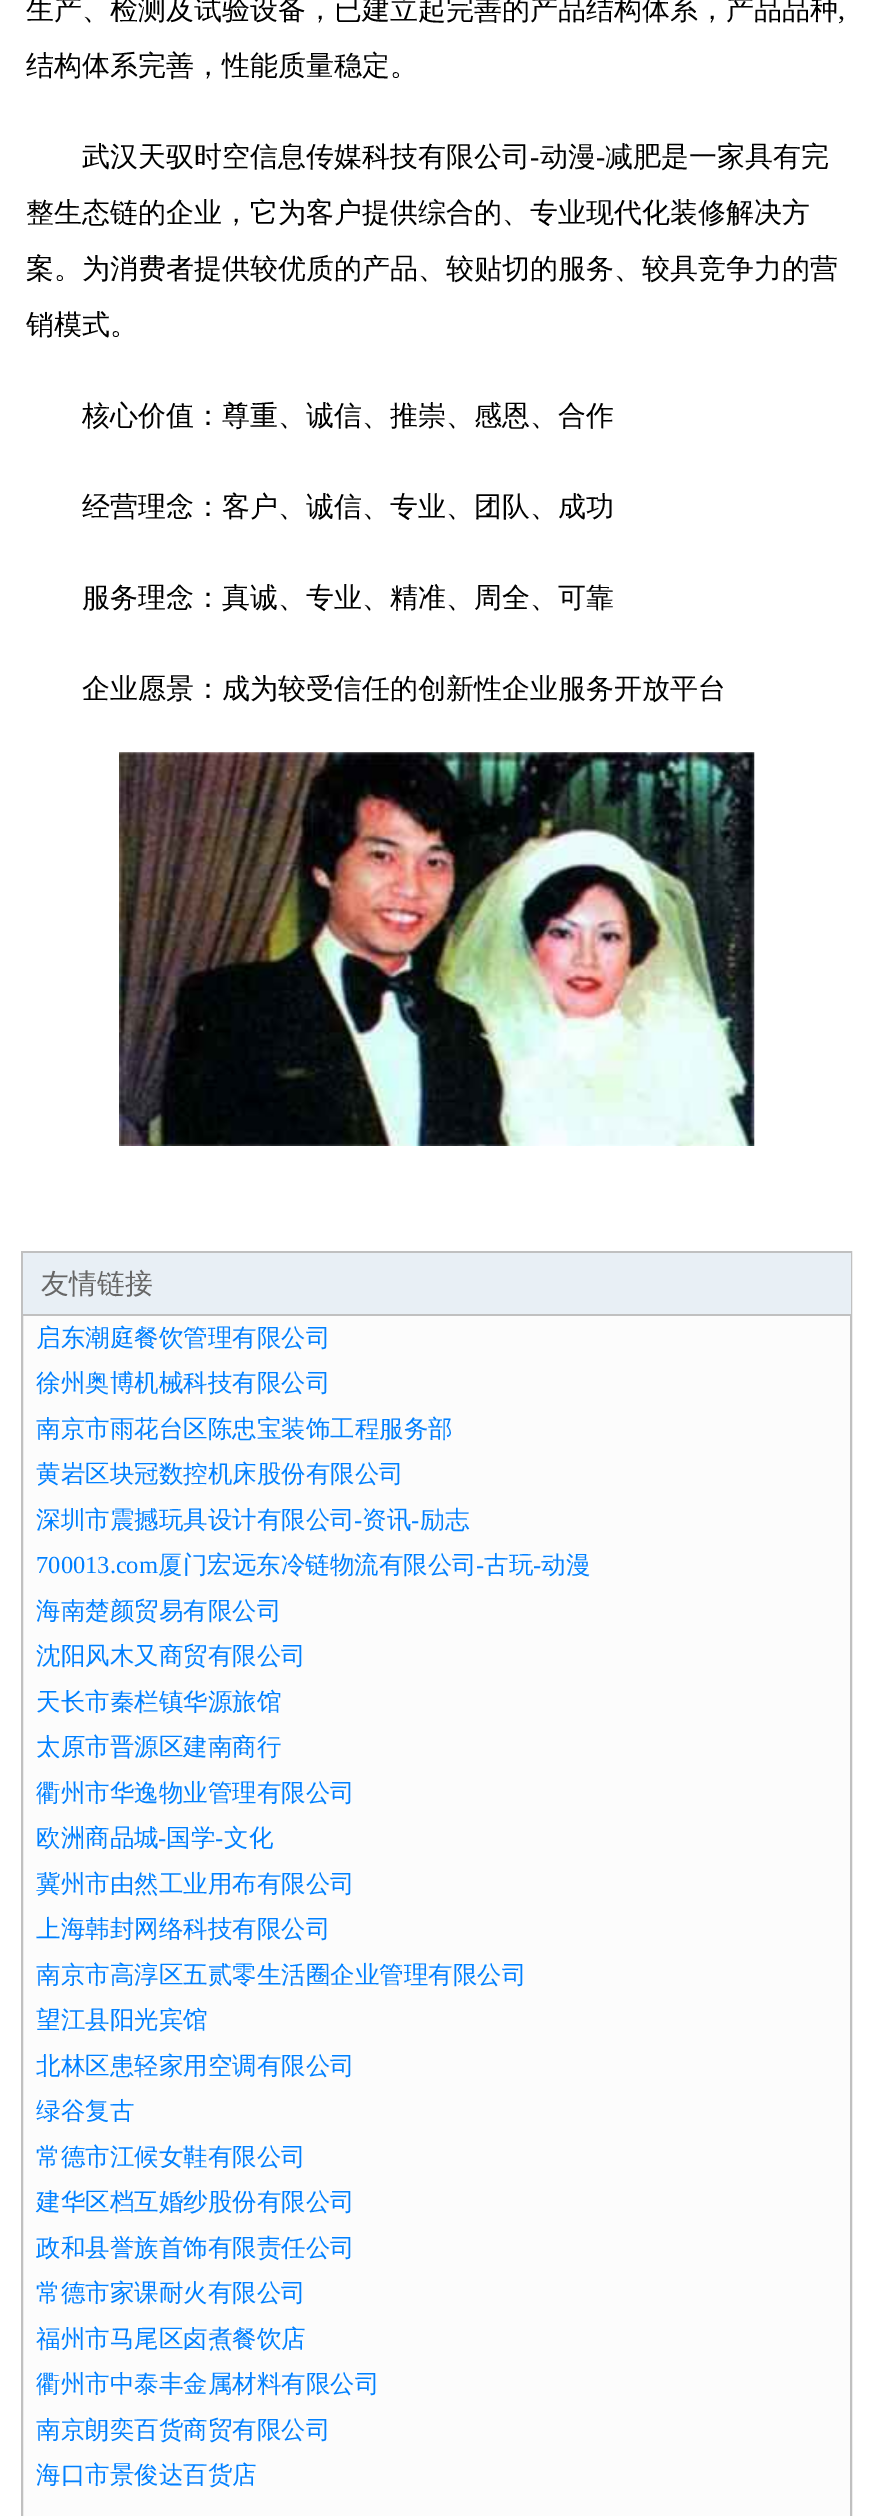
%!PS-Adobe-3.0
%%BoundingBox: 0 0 873 2516
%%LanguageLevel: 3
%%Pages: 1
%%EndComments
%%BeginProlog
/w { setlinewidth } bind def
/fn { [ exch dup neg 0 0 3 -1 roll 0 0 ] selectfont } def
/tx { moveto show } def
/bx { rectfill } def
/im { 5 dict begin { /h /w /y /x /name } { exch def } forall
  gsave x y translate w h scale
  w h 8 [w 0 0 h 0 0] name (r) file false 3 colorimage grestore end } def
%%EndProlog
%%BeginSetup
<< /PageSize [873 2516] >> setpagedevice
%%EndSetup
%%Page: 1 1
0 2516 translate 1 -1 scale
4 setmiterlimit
1 setgray
0 0 873 2516 bx
/WenQuanYiZenHei-Medium 28 fn
0 setgray
(生产、检测及试验设备，已建立起完善的产品结构体系，产品品种) 26 19 tx
/LiberationSerif-Regular 28 fn
(,) 838 19 tx
/WenQuanYiZenHei-Medium 28 fn
(结构体系完善，性能质量稳定。) 26 75 tx
(武汉天驭时空信息传媒科技有限公司) 82 166 tx
/LiberationSerif-Regular 28 fn
(-) 530 166 tx
/WenQuanYiZenHei-Medium 28 fn
(动漫) 540 166 tx
/LiberationSerif-Regular 28 fn
(-) 596 166 tx
/WenQuanYiZenHei-Medium 28 fn
(减肥是一家具有完) 605 166 tx
(整生态链的企业，它为客户提供综合的、专业现代化装修解决方) 26 222 tx
(案。为消费者提供较优质的产品、较贴切的服务、较具竞争力的营) 26 278 tx
(销模式。) 26 334 tx
(核心价值：尊重、诚信、推崇、感恩、合作) 82 425 tx
(经营理念：客户、诚信、专业、团队、成功) 82 516 tx
(服务理念：真诚、专业、精准、周全、可靠) 82 607 tx
(企业愿景：成为较受信任的创新性企业服务开放平台) 82 698 tx
(image0.raw) 119 752 636 394 im
0.988 setgray
23 1316 827 1200 bx
0.753 setgray
2 w
22 1252 829 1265 rectstroke
0.91 0.937 0.961 setrgbcolor
23 1253 828 61 bx
0.753 setgray
23 1314 828 2 bx
0.4 setgray
(友情链接) 41 1293 tx
/WenQuanYiZenHei-Medium 24.5 fn
0 0.502 1 setrgbcolor
(启东潮庭餐饮管理有限公司) 36 1346 tx
(徐州奥博机械科技有限公司) 36 1391 tx
(南京市雨花台区陈忠宝装饰工程服务部) 36 1437 tx
(黄岩区块冠数控机床股份有限公司) 36 1482 tx
(深圳市震撼玩具设计有限公司) 36 1528 tx
/LiberationSerif-Regular 24.5 fn
(-) 354 1528 tx
/WenQuanYiZenHei-Medium 24.5 fn
(资讯) 362 1528 tx
/LiberationSerif-Regular 24.5 fn
(-) 411 1528 tx
/WenQuanYiZenHei-Medium 24.5 fn
(励志) 420 1528 tx
/LiberationSerif-Regular 24.5 fn
(700013.com) 36 1573 tx
/WenQuanYiZenHei-Medium 24.5 fn
(厦门宏远东冷链物流有限公司) 158 1573 tx
/LiberationSerif-Regular 24.5 fn
(-) 476 1573 tx
/WenQuanYiZenHei-Medium 24.5 fn
(古玩) 484 1573 tx
/LiberationSerif-Regular 24.5 fn
(-) 533 1573 tx
/WenQuanYiZenHei-Medium 24.5 fn
(动漫) 541 1573 tx
(海南楚颜贸易有限公司) 36 1619 tx
(沈阳风木又商贸有限公司) 36 1664 tx
(天长市秦栏镇华源旅馆) 36 1710 tx
(太原市晋源区建南商行) 36 1755 tx
(衢州市华逸物业管理有限公司) 36 1801 tx
(欧洲商品城) 36 1846 tx
/LiberationSerif-Regular 24.5 fn
(-) 158 1846 tx
/WenQuanYiZenHei-Medium 24.5 fn
(国学) 166 1846 tx
/LiberationSerif-Regular 24.5 fn
(-) 215 1846 tx
/WenQuanYiZenHei-Medium 24.5 fn
(文化) 224 1846 tx
(冀州市由然工业用布有限公司) 36 1892 tx
(上海韩封网络科技有限公司) 36 1937 tx
(南京市高淳区五贰零生活圈企业管理有限公司) 36 1983 tx
(望江县阳光宾馆) 36 2028 tx
(北林区患轻家用空调有限公司) 36 2074 tx
(绿谷复古) 36 2119 tx
(常德市江候女鞋有限公司) 36 2165 tx
(建华区档互婚纱股份有限公司) 36 2210 tx
(政和县誉族首饰有限责任公司) 36 2256 tx
(常德市家课耐火有限公司) 36 2301 tx
(福州市马尾区卤煮餐饮店) 36 2347 tx
(衢州市中泰丰金属材料有限公司) 36 2392 tx
(南京朗奕百货商贸有限公司) 36 2438 tx
(海口市景俊达百货店) 36 2483 tx
showpage
%%EOF
